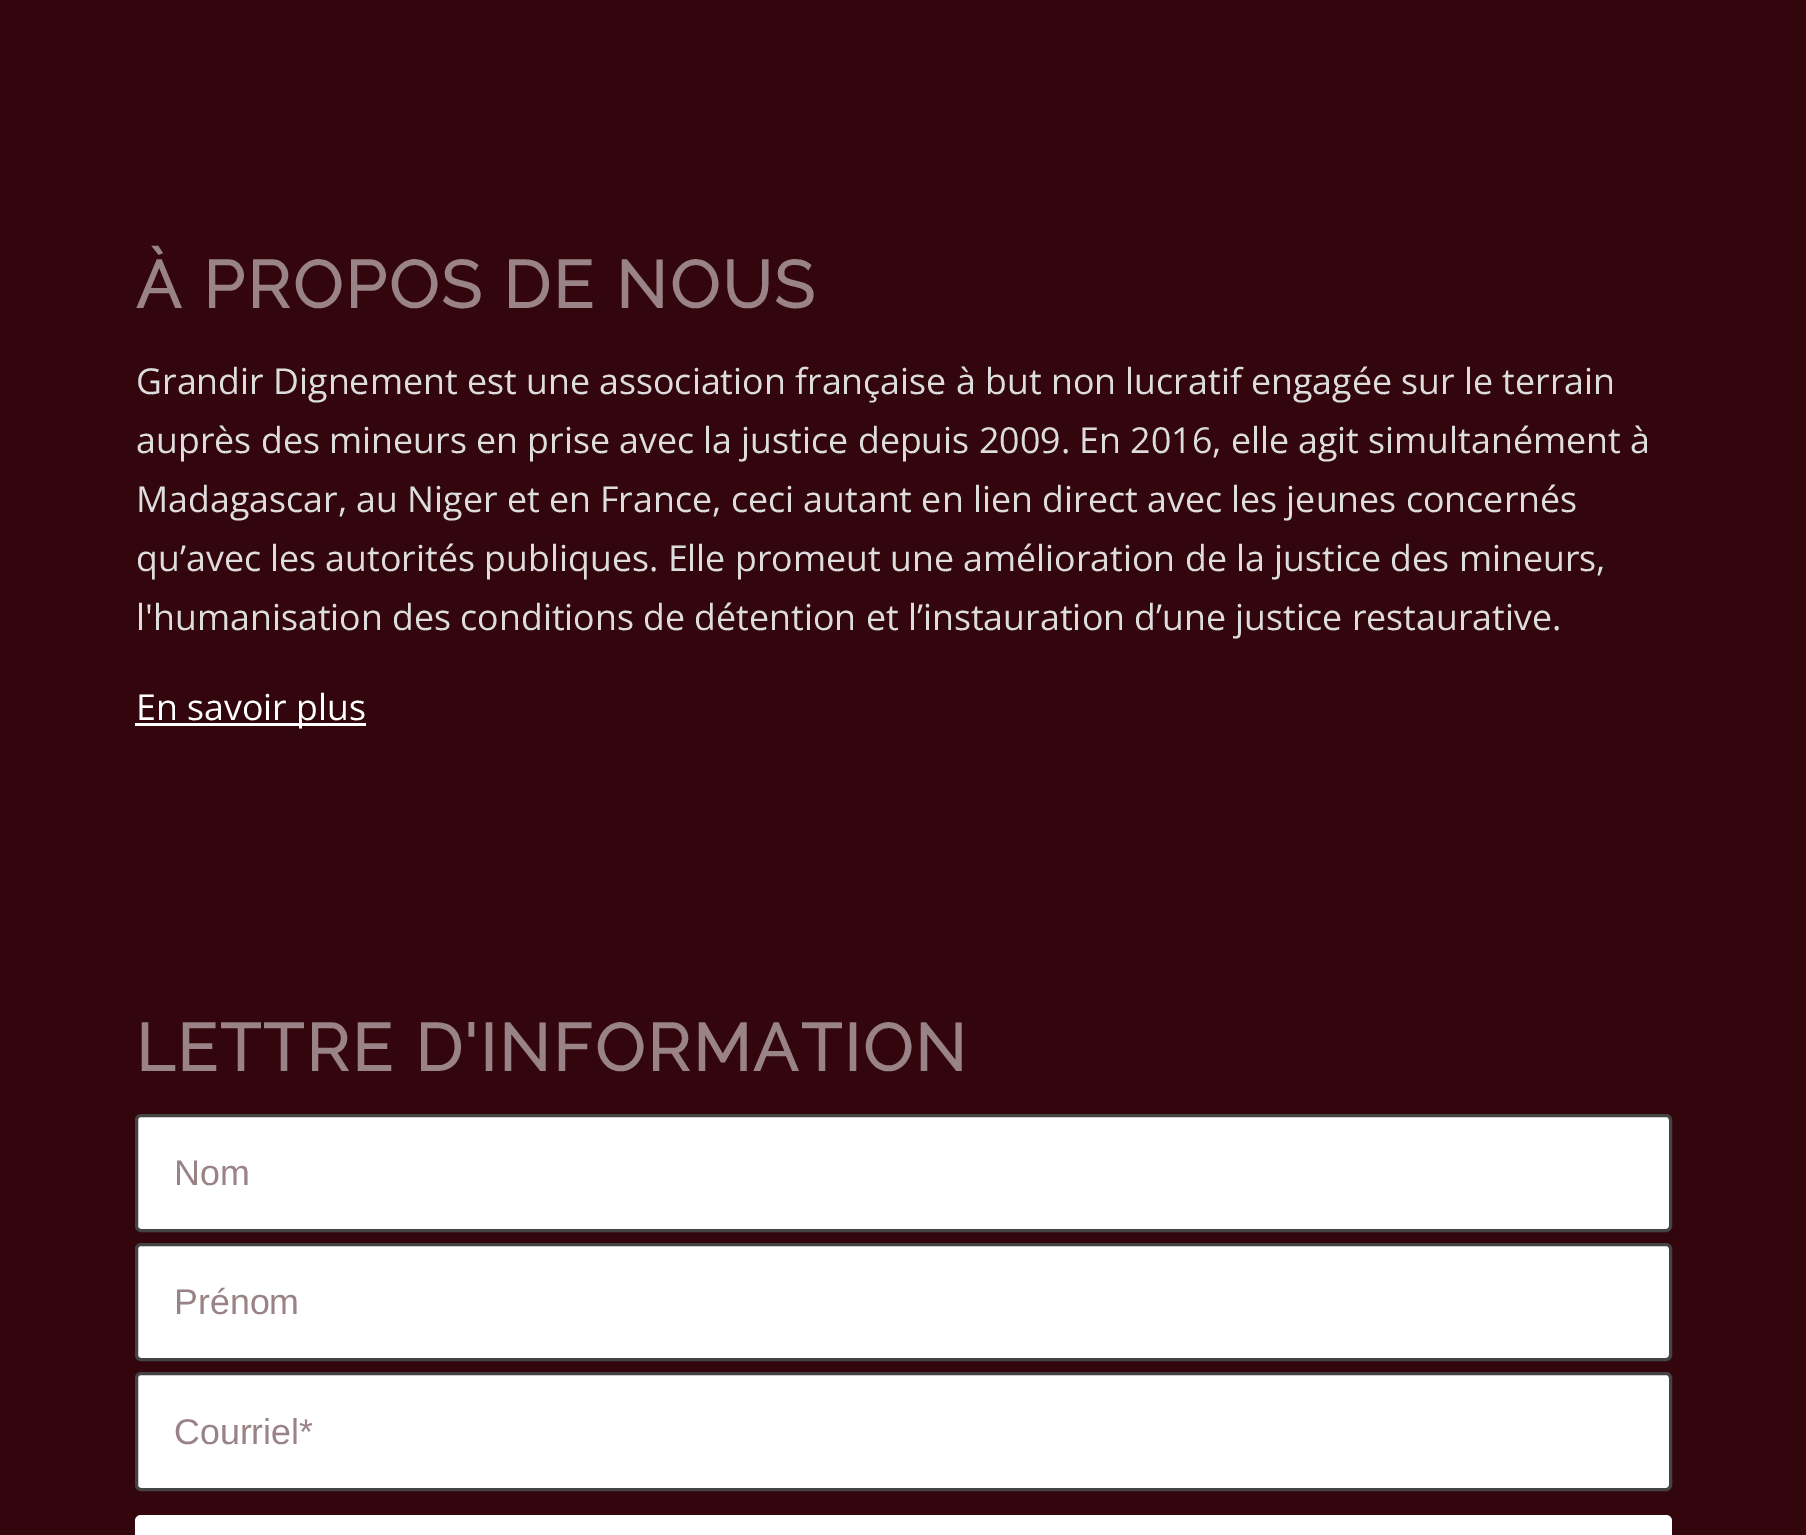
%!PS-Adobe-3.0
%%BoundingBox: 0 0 1806 1535
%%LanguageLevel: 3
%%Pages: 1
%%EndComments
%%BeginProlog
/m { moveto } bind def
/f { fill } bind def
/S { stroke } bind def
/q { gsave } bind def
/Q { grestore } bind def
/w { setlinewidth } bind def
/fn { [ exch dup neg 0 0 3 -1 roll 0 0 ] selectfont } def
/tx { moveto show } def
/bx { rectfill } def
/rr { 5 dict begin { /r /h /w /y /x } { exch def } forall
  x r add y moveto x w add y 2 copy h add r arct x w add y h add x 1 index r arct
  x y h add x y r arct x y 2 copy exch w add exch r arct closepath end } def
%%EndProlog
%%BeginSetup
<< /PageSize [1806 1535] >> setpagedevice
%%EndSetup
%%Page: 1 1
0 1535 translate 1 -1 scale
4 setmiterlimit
0.2 0.024 0.055 setrgbcolor
0 0 1806 1535 bx
/Raleway-Bold 66 fn
0.6 0.514 0.529 setrgbcolor
136 308 m 2.75 0 (À PROPOS DE NOUS) ashow
/OpenSans-Regular 35.75 fn
0.867 setgray
(Grandir Dignement est une association française à but non lucratif engagée sur le terrain) 136 394 tx
(auprès des mineurs en prise avec la justice depuis 2009. En 2016, elle agit simultanément à) 136 453 tx
(Madagascar, au Niger et en France, ceci autant en lien direct avec les jeunes concernés) 136 512 tx
(qu’avec les autorités publiques. Elle promeut une amélioration de la justice des mineurs,) 136 571 tx
(l'humanisation des conditions de détention et l’instauration d’une justice restaurative.) 136 630 tx
1 setgray
135 723 231 3 bx
(En savoir plus) 136 720 tx
/Raleway-Bold 66 fn
0.6 0.514 0.529 setrgbcolor
136 1071 m 2.75 0 (LETTRE D'INFORMATION) ashow
1 setgray
136.5 1115.5 1534 115 4.5 rr q f Q
0.267 setgray
3 w
S
/LiberationSans-Regular 35.75 fn
0.6 0.514 0.529 setrgbcolor
(Nom) 174 1185 tx
1 setgray
136.5 1244.5 1534 115 4.5 rr q f Q
0.267 setgray
S
0.6 0.514 0.529 setrgbcolor
(Prénom) 174 1314 tx
1 setgray
136.5 1373.5 1534 116 4.5 rr q f Q
0.267 setgray
S
0.6 0.514 0.529 setrgbcolor
(Courriel*) 174 1444 tx
1 setgray
135 1515 1537 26 6 rr f
showpage
%%EOF
